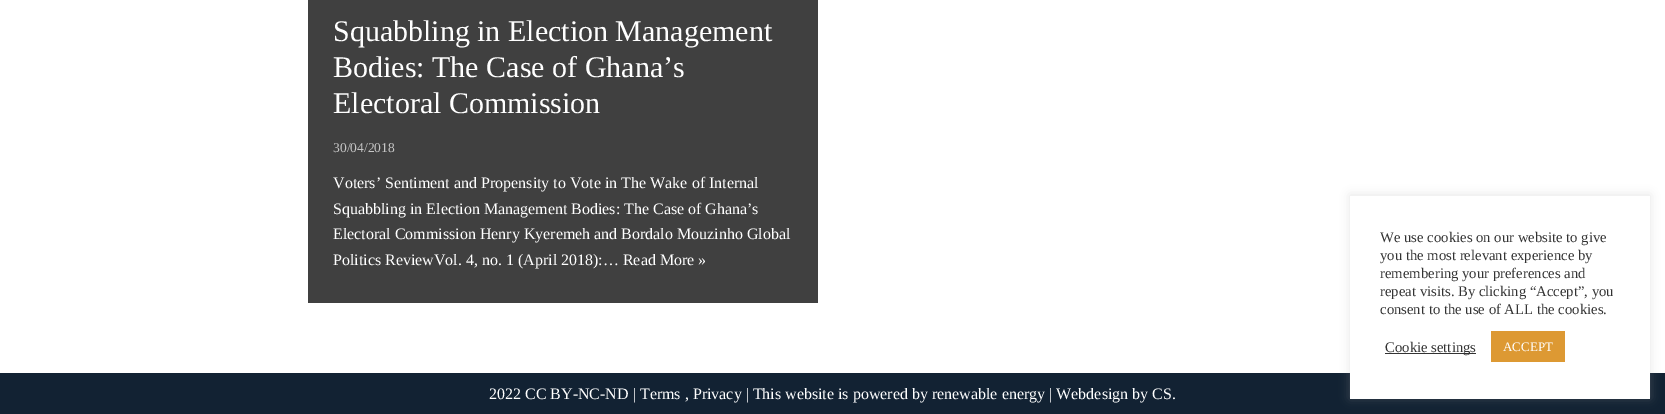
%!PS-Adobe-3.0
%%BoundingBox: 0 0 1665 414
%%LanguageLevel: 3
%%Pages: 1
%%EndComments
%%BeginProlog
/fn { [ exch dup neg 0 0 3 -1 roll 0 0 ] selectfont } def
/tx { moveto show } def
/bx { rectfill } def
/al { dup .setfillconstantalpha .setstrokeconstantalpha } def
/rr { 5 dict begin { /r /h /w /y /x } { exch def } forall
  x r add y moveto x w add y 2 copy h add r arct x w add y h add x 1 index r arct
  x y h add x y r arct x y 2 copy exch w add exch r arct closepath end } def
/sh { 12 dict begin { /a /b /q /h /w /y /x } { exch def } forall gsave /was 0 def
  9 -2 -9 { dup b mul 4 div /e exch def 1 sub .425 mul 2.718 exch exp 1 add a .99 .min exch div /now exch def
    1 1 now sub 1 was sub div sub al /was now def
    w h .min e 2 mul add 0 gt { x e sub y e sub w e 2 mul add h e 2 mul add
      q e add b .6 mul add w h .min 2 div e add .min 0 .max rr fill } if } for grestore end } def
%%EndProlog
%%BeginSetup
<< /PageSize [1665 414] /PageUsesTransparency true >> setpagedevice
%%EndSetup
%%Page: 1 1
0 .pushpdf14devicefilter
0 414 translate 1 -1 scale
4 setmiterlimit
1 setgray
0 0 1665 414 bx
0.251 setgray
308 0 510 303 bx
/LiberationSerif-Regular 30 fn
1 setgray
(Squabbling in Election Management) 333 41 tx
(Bodies: The Case of Ghana’s) 333 77 tx
(Electoral Commission) 333 113 tx
/LiberationSerif-Regular 13.5 fn
0.776 setgray
(30/04/2018) 333 152 tx
/LiberationSerif-Regular 16 fn
1 setgray
(Voters’ Sentiment and Propensity to Vote in The Wake of Internal) 333 188 tx
(Squabbling in Election Management Bodies: The Case of Ghana’s) 333 214 tx
(Electoral Commission Henry Kyeremeh and Bordalo Mouzinho Global) 333 239 tx
(Politics ReviewVol. 4, no. 1 \(April 2018\):… Read More ») 333 265 tx
0.071 0.133 0.2 setrgbcolor
0 373 1665 41 bx
1 setgray
(2022 CC BY-NC-ND | Terms , Privacy | This website is powered by renewable energy | Webdesign by CS.) 489 399 tx
0.675 0.671 0.671 setrgbcolor
1350 195 300 203 0 5 0.3 sh
1 setgray
1350 196 300 203 bx
/LiberationSerif-Regular 14.7 fn
0.2 setgray
(We use cookies on our website to give) 1380 242 tx
(you the most relevant experience by) 1380 260 tx
(remembering your preferences and) 1380 278 tx
(repeat visits. By clicking “Accept”, you) 1380 296 tx
(consent to the use of ALL the cookies.) 1380 314 tx
1385 353 91 1 bx
(Cookie settings) 1385 352 tx
0.867 0.6 0.2 setrgbcolor
1491 331 74 31 bx
/LiberationSerif-Regular 13 fn
1 setgray
(ACCEPT) 1503 351 tx
.poppdf14devicefilter showpage
%%EOF
